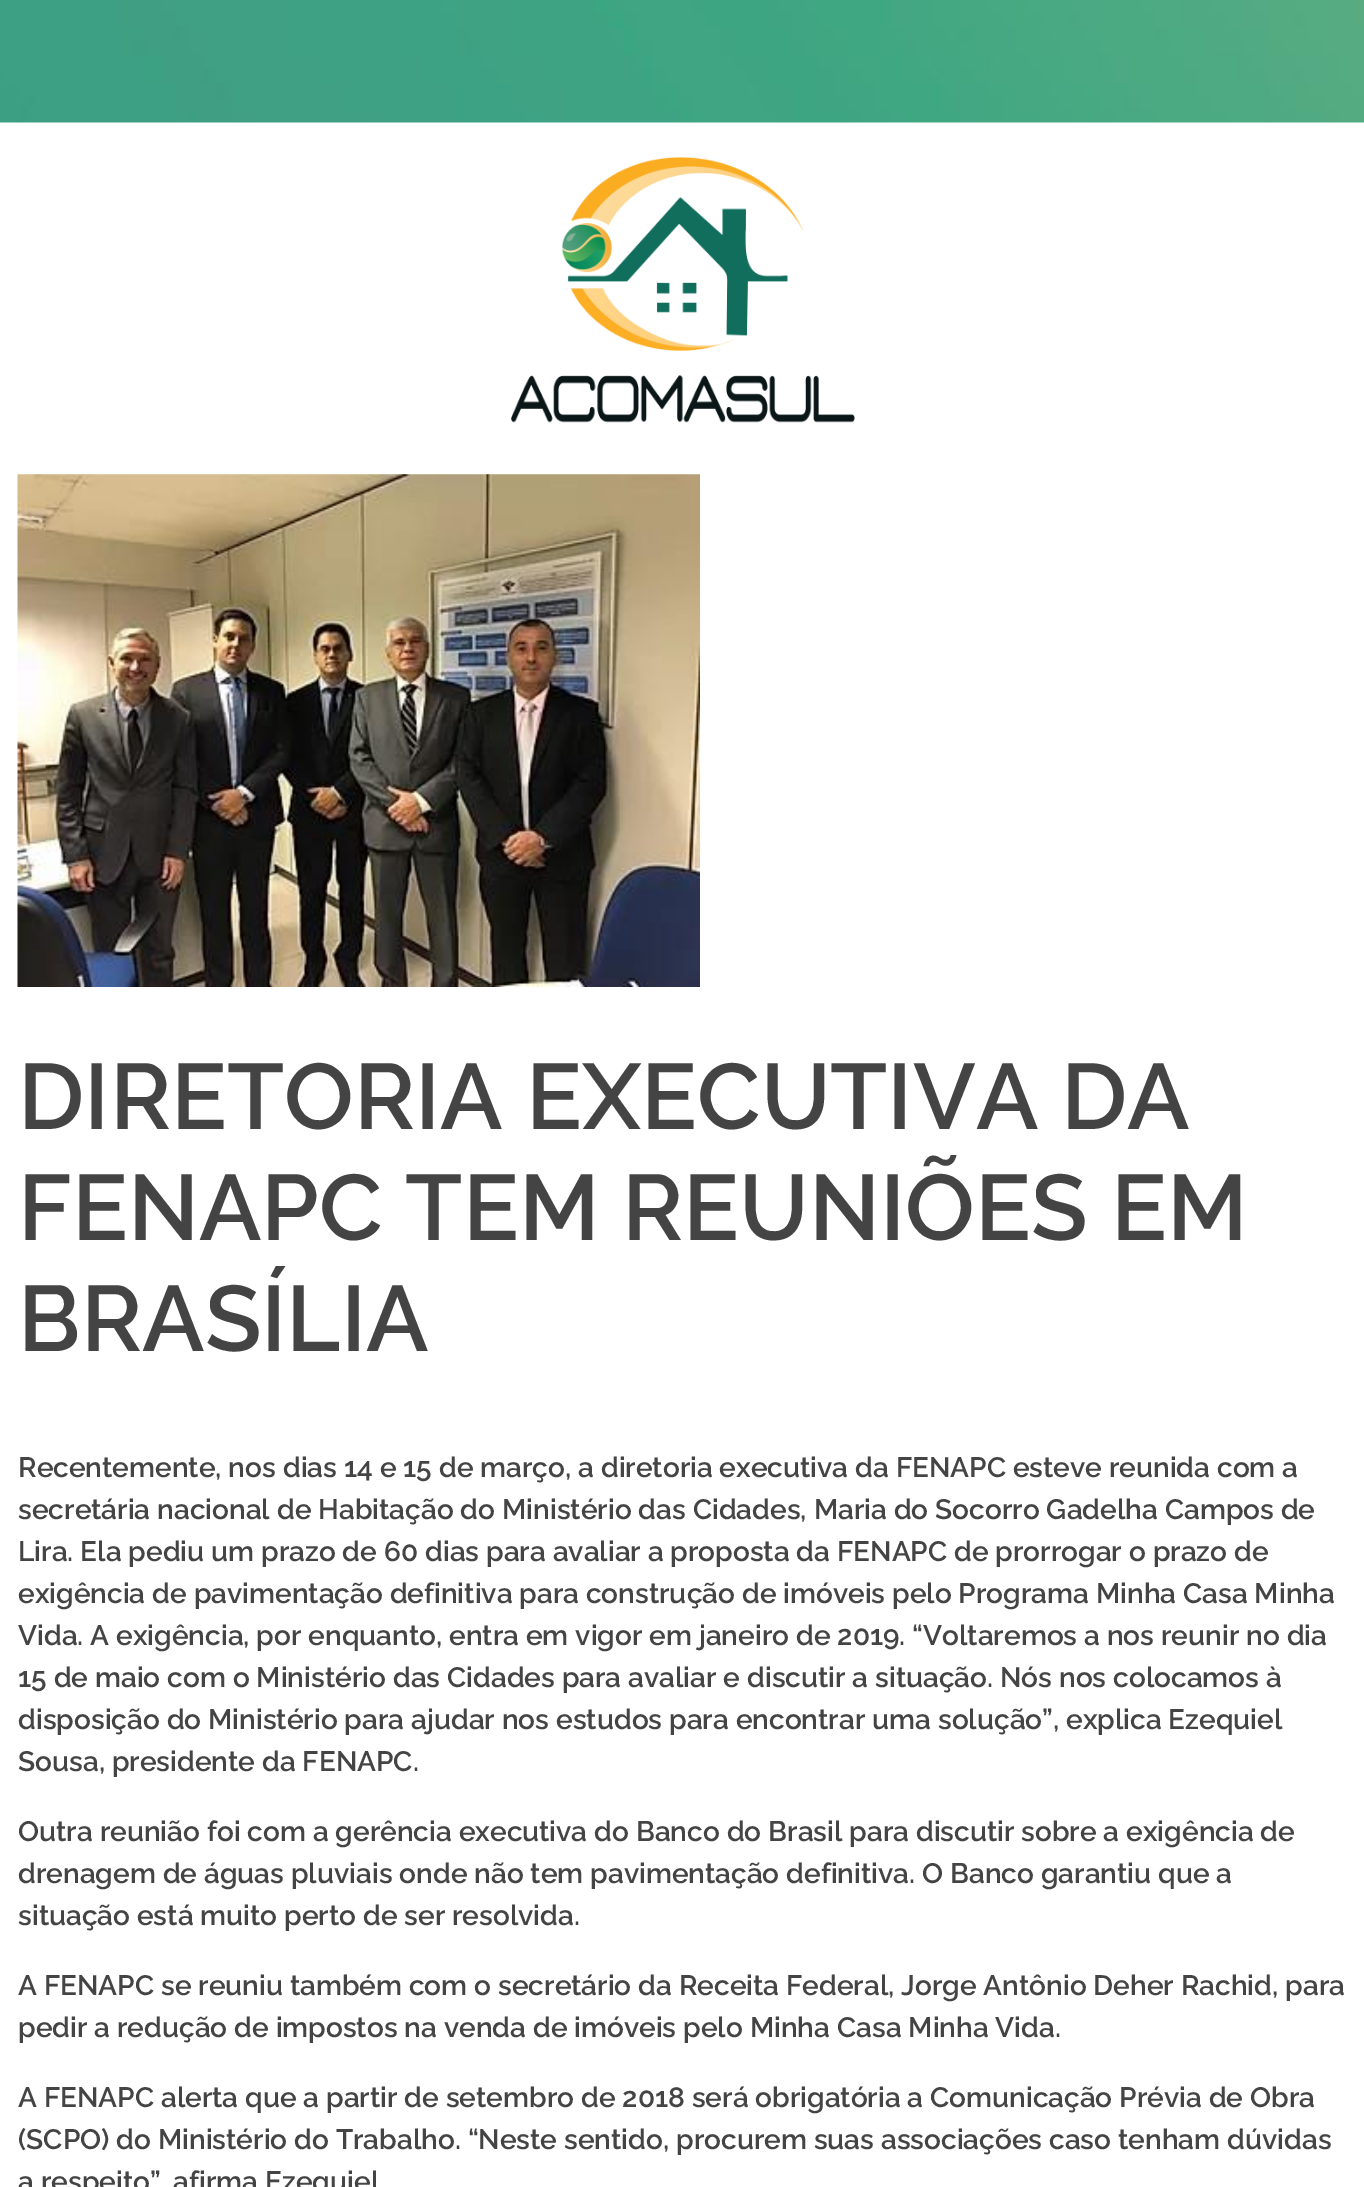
%!PS-Adobe-3.0
%%BoundingBox: 0 0 1364 2187
%%LanguageLevel: 3
%%Pages: 1
%%EndComments
%%BeginProlog
/fn { [ exch dup neg 0 0 3 -1 roll 0 0 ] selectfont } def
/tx { moveto show } def
/bx { rectfill } def
/im { 5 dict begin { /h /w /y /x /name } { exch def } forall
  gsave x y translate w h scale
  w h 8 [w 0 0 h 0 0] name (r) file false 3 colorimage grestore end } def
%%EndProlog
%%BeginSetup
<< /PageSize [1364 2187] >> setpagedevice
%%EndSetup
%%Page: 1 1
0 2187 translate 1 -1 scale
4 setmiterlimit
1 setgray
0 0 1364 2187 bx
(image0.raw) 0 0 1364 123 im
(image1.raw) 511 157 344 266 im
(image2.raw) 17 474 683 513 im
/Raleway-SemiBold 92.75 fn
0.267 setgray
(DIRETORIA EXECUTIVA DA) 18 1129 tx
(FENAPC TEM REUNIÕES EM) 18 1240 tx
(BRASÍLIA) 18 1351 tx
/Raleway-SemiBold 28 fn
(Recentemente, nos dias 14 e 15 de março, a diretoria executiva da FENAPC esteve reunida com a) 18 1477 tx
(secretária nacional de Habitação do Ministério das Cidades, Maria do Socorro Gadelha Campos de) 18 1519 tx
(Lira. Ela pediu um prazo de 60 dias para avaliar a proposta da FENAPC de prorrogar o prazo de) 18 1561 tx
(exigência de pavimentação definitiva para construção de imóveis pelo Programa Minha Casa Minha) 18 1603 tx
(Vida. A exigência, por enquanto, entra em vigor em janeiro de 2019. “Voltaremos a nos reunir no dia) 18 1645 tx
(15 de maio com o Ministério das Cidades para avaliar e discutir a situação. Nós nos colocamos à) 18 1687 tx
(disposição do Ministério para ajudar nos estudos para encontrar uma solução”, explica Ezequiel) 18 1729 tx
(Sousa, presidente da FENAPC.) 18 1771 tx
(Outra reunião foi com a gerência executiva do Banco do Brasil para discutir sobre a exigência de) 18 1841 tx
(drenagem de águas pluviais onde não tem pavimentação definitiva. O Banco garantiu que a) 18 1883 tx
(situação está muito perto de ser resolvida.) 18 1925 tx
(A FENAPC se reuniu também com o secretário da Receita Federal, Jorge Antônio Deher Rachid, para) 18 1995 tx
(pedir a redução de impostos na venda de imóveis pelo Minha Casa Minha Vida.) 18 2037 tx
(A FENAPC alerta que a partir de setembro de 2018 será obrigatória a Comunicação Prévia de Obra) 18 2107 tx
(\(SCPO\) do Ministério do Trabalho. “Neste sentido, procurem suas associações caso tenham dúvidas) 18 2149 tx
(a respeito”, afirma Ezequiel) 18 2191 tx
showpage
%%EOF
